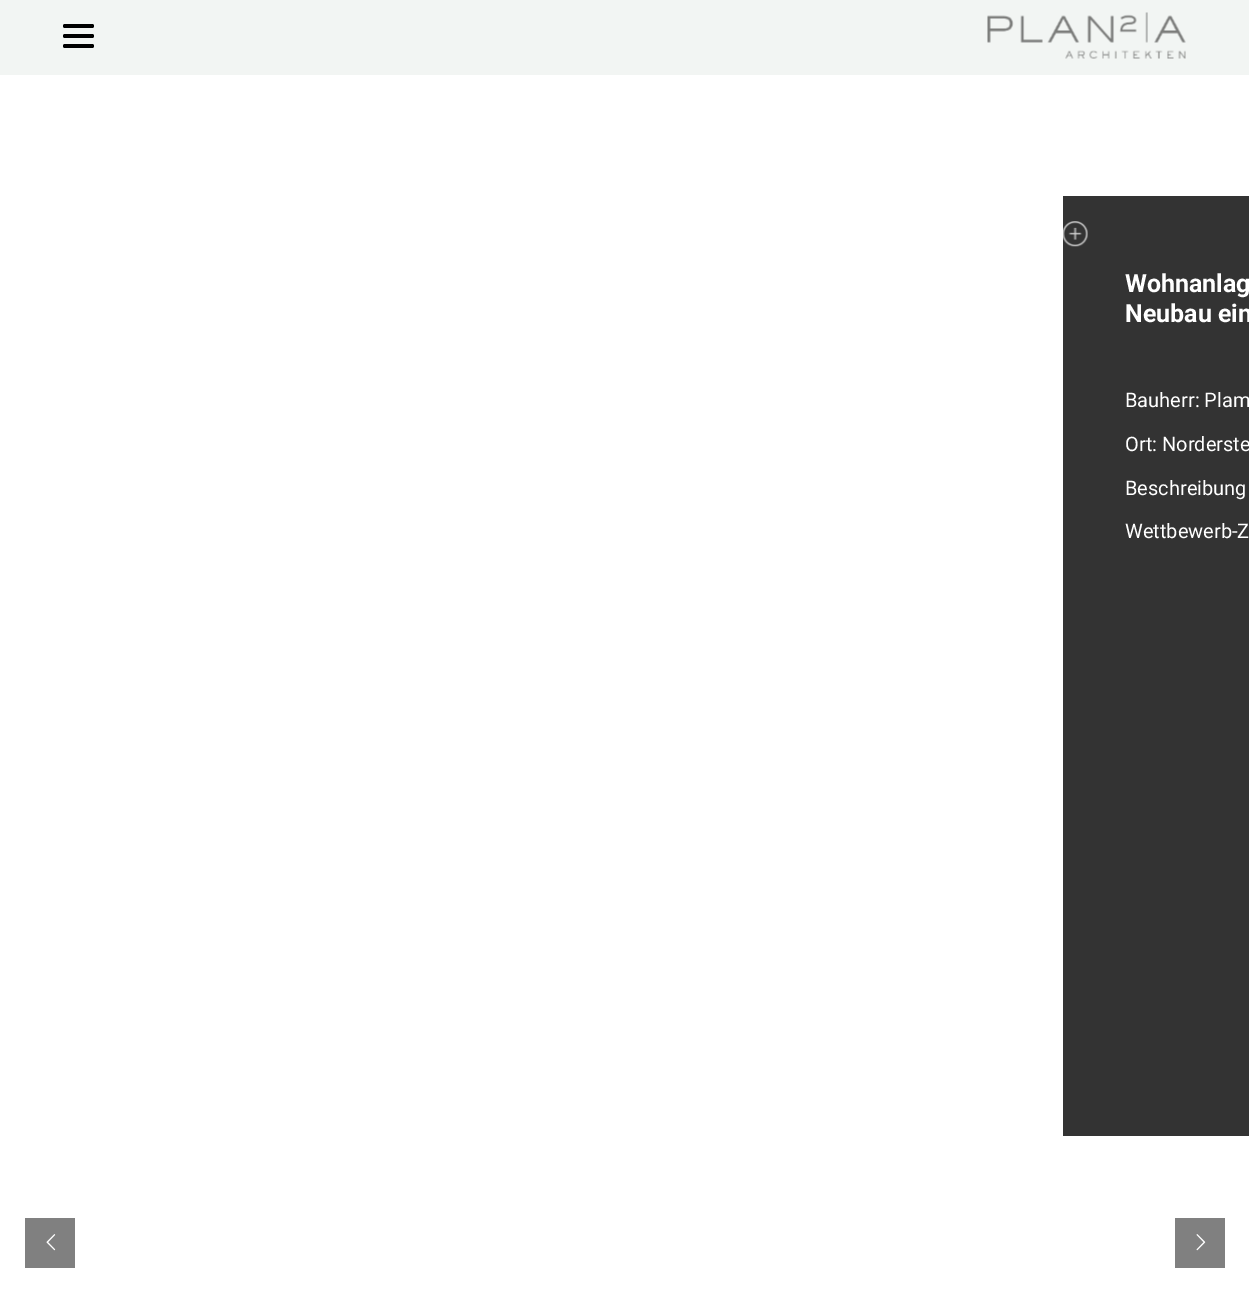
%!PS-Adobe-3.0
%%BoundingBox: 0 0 1249 1307
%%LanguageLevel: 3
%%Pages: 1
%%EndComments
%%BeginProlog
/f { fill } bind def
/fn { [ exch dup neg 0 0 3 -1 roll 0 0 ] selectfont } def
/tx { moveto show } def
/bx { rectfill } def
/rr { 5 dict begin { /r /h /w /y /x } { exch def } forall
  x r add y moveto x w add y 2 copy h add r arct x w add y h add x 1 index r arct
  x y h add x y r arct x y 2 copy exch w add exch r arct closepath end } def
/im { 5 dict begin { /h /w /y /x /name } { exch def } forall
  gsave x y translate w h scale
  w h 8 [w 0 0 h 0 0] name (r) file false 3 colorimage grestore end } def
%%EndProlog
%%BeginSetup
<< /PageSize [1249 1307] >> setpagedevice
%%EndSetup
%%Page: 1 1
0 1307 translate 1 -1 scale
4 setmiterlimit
1 setgray
0 0 1249 1307 bx
0.949 0.961 0.953 setrgbcolor
0 0 1249 75 bx
0 setgray
63 34 31 4 2 rr f
63 24 31 4 2 rr f
63 44 31 4 2 rr f
(image0.raw) 987 12 199 47 im
0.2 setgray
1063 196 186 940 bx
(image1.raw) 1063 221 25 26 im
/Roboto-Bold 25 fn
1 setgray
(Wohnanlag) 1125 292 tx
(Neubau ein) 1125 322 tx
/Roboto-Regular 20 fn
(Bauherr: Plam) 1125 407 tx
(Ort: Norderste) 1125 451 tx
(Beschreibung) 1125 495 tx
(Wettbewerb-Z) 1125 538 tx
0.502 setgray
25 1218 50 50 bx
(image2.raw) 46 1234 10 17 im
1175 1218 50 50 bx
(image3.raw) 1196 1234 10 17 im
showpage
%%EOF
